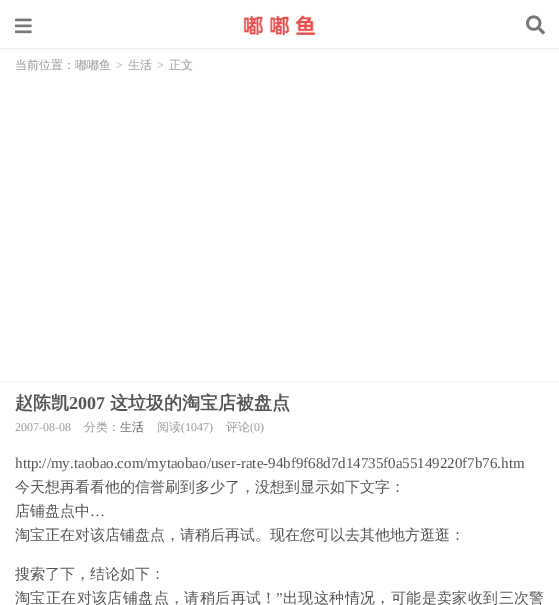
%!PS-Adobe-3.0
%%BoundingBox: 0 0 559 605
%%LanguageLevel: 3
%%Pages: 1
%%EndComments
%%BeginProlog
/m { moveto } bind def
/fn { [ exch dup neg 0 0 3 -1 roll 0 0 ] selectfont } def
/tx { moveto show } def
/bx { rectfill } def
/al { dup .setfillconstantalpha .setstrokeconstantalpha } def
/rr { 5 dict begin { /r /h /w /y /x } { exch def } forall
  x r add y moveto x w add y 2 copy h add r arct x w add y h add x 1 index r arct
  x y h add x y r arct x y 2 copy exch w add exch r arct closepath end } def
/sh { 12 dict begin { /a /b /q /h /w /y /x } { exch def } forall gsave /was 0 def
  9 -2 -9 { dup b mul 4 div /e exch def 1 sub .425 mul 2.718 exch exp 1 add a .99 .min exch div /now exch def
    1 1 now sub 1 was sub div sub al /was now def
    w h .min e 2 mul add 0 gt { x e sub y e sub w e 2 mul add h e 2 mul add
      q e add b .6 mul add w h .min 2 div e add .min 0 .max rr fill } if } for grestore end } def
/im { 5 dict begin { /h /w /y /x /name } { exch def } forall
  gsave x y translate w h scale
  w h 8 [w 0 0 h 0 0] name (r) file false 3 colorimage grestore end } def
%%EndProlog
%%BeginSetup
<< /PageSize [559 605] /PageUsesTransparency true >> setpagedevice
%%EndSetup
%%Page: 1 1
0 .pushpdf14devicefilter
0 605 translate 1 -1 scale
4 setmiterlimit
0.965 setgray
0 0 559 605 bx
1 setgray
0 49 559 332 bx
0 setgray
0 1 559 48 0 2.5 0.05 sh
1 setgray
0 0 559 48 bx
(image0.raw) 15 18 17 16 im
(image1.raw) 243 15 73 20 im
(image2.raw) 526 15 19 20 im
/WenQuanYiZenHei-Medium 12 fn
0.6 setgray
(当前位置：嘟嘟鱼) 15 69 tx
/LiberationSerif-Bold 12 fn
0.733 setgray
(>) 116 69 tx
/WenQuanYiZenHei-Medium 12 fn
0.6 setgray
(生活) 128 69 tx
/LiberationSerif-Bold 12 fn
0.733 setgray
(>) 157 69 tx
/WenQuanYiZenHei-Medium 12 fn
0.6 setgray
(正文) 169 69 tx
1 setgray
0 382 559 223 bx
/WenQuanYiZenHei-Bold 18 fn
0.333 setgray
(赵陈凯) 15 409 tx
/LiberationSerif-Bold 18 fn
(2007) 69 409 tx
/WenQuanYiZenHei-Bold 18 fn
(这垃圾的淘宝店被盘点) 110 409 tx
/LiberationSerif-Regular 12 fn
0.6 setgray
(2007-08-08) 15 431 tx
/WenQuanYiZenHei-Medium 12 fn
(分类：) 84 431 tx
0.4 setgray
(生活) 120 431 tx
0.6 setgray
(阅读) 157 431 tx
/LiberationSerif-Regular 12 fn
(\(1047\)) 181 431 tx
/WenQuanYiZenHei-Medium 12 fn
(评论) 226 431 tx
/LiberationSerif-Regular 12 fn
(\(0\)) 250 431 tx
/LiberationSerif-Regular 15 fn
0.333 setgray
(http://my.taobao.com/mytaobao/user-rate-94bf9f68d7d14735f0a55149220f7b76.htm) 15 468 tx
/WenQuanYiZenHei-Medium 15 fn
(今天想再看看他的信誉刷到多少了，没想到显示如下文字：) 15 492 tx
(店铺盘点中) 15 516 tx
/LiberationSerif-Regular 15 fn
(…) 90 516 tx
/WenQuanYiZenHei-Medium 15 fn
(淘宝正在对该店铺盘点，请稍后再试。现在您可以去其他地方逛逛：) 15 540 tx
(搜索了下，结论如下：) 15 579 tx
15 603 m 0.4 0 (淘宝正在对该店铺盘点，请稍后再试！) ashow
/LiberationSerif-Regular 15 fn
276 603 m 0.4 0 (”) ashow
/WenQuanYiZenHei-Medium 15 fn
283 603 m 0.4 0 (出现这种情况，可能是卖家收到三次警) ashow
.poppdf14devicefilter showpage
%%EOF
